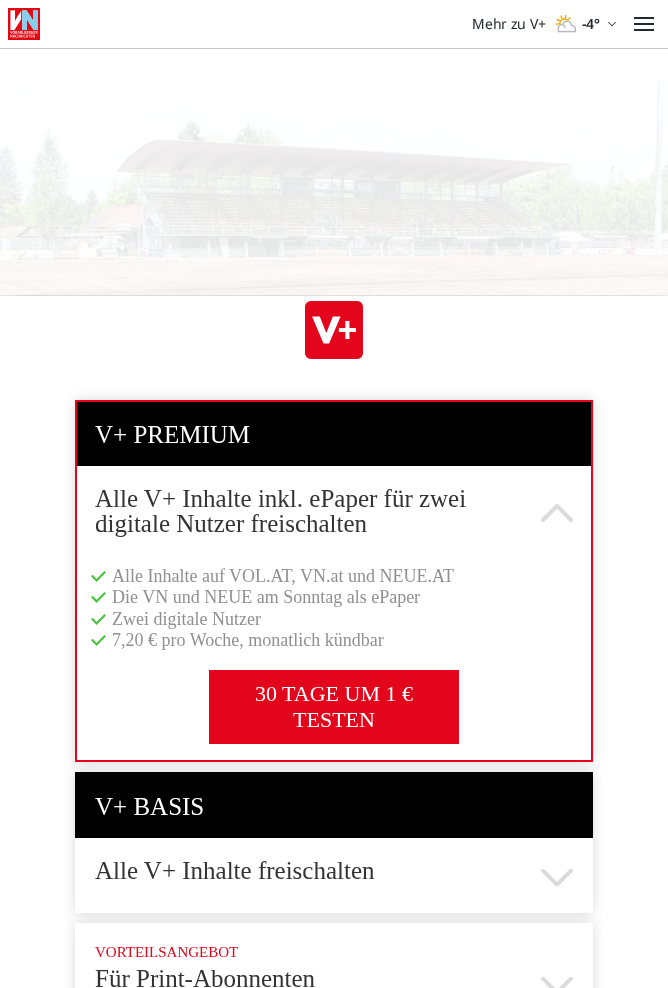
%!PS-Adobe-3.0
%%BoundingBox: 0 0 668 988
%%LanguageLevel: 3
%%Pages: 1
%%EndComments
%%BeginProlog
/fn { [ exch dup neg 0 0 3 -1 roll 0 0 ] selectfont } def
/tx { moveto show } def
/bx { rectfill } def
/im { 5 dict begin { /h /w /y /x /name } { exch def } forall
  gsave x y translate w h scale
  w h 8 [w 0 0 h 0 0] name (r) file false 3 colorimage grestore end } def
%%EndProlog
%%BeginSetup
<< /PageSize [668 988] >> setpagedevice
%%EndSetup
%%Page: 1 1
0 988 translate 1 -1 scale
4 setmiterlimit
1 setgray
0 0 668 988 bx
0.769 setgray
0 48 668 1 bx
(image0.raw) 8 8 32 32 im
/NotoSans-Regular 14 fn
0.133 0.161 0.184 setrgbcolor
(Mehr zu V+) 472 29 tx
(image1.raw) 555 14 22 19 im
/NotoSans-SemiBold 14 fn
(-4°) 582 29 tx
(image2.raw) 608 21 8 6 im
(image3.raw) 634 17 20 14 im
(image4.raw) 0 80 668 216 im
(image5.raw) 0 295 668 693 im
showpage
%%EOF
